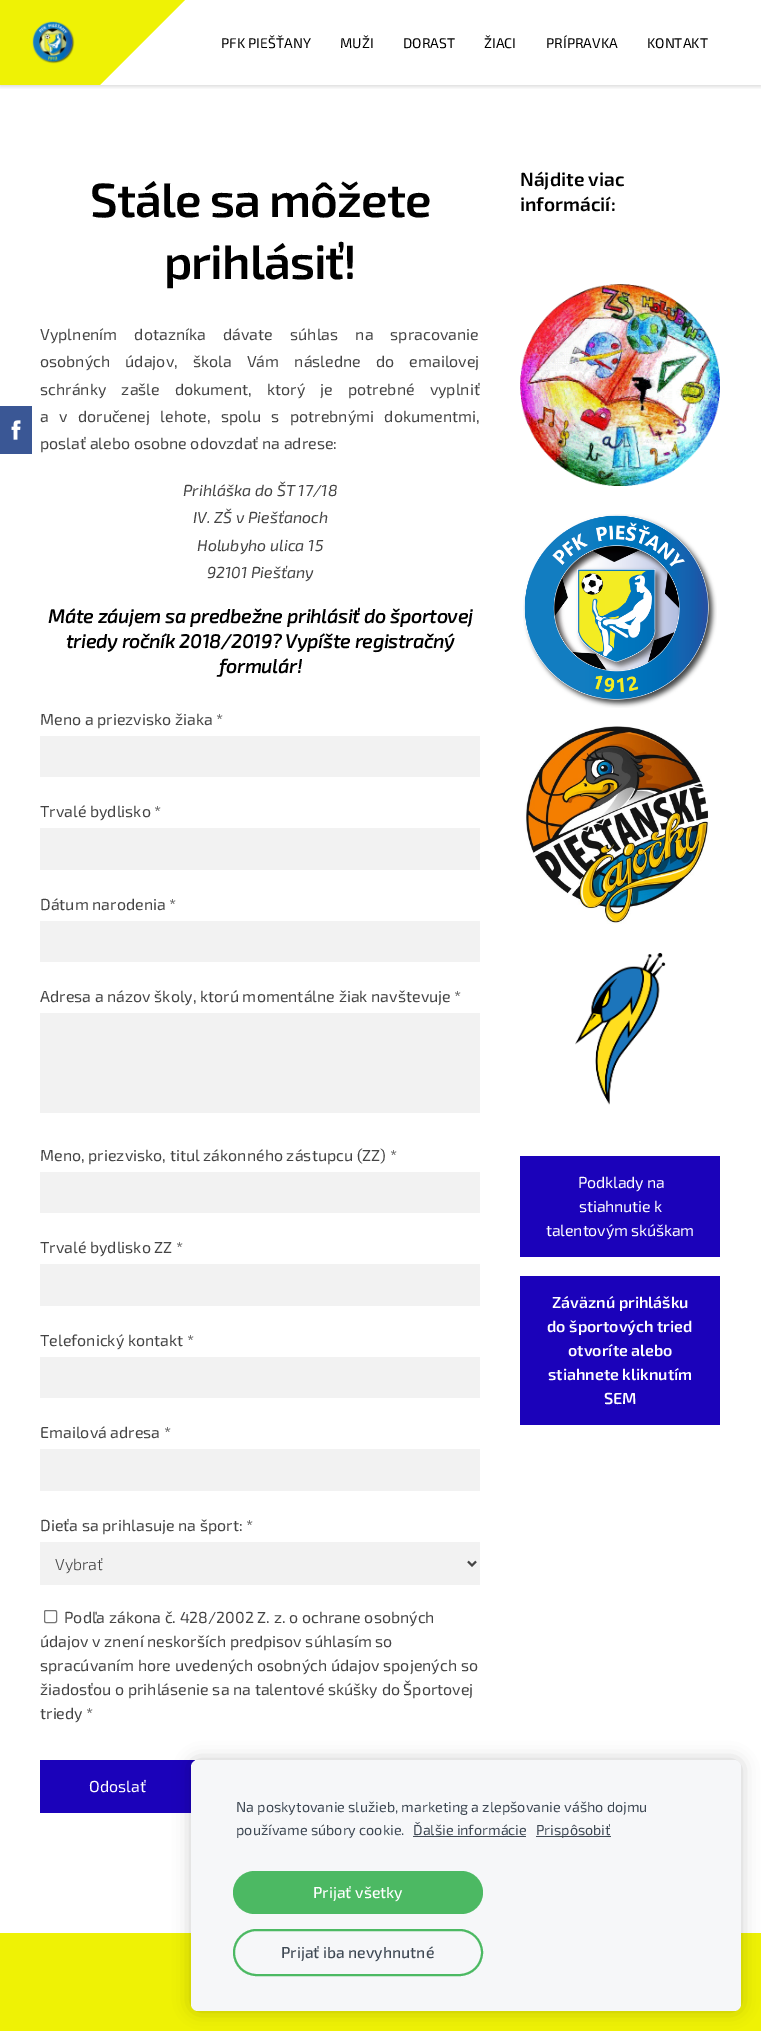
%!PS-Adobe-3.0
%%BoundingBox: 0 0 761 2031
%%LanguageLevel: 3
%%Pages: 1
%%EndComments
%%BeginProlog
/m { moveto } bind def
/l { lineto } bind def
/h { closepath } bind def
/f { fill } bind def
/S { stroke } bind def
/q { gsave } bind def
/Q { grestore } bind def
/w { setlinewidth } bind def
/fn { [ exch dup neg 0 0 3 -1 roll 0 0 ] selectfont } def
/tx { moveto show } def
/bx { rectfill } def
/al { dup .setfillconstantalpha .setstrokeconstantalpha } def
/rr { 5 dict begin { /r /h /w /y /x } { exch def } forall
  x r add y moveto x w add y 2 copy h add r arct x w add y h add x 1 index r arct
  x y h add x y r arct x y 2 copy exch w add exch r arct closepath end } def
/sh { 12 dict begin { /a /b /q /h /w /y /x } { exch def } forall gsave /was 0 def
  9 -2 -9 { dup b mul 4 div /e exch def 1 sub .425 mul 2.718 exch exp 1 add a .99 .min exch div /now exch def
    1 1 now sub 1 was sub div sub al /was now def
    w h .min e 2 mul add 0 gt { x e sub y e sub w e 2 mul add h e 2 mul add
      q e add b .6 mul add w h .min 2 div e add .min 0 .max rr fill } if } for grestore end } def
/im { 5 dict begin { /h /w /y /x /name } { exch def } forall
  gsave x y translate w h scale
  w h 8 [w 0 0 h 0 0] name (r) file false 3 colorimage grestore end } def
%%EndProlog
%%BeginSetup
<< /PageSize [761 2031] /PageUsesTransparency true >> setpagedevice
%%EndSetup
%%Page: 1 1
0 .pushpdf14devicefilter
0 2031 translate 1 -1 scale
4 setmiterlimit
0.937 0.949 0.02 setrgbcolor
0 0 761 2031 bx
1 setgray
0 0 761 1933 bx
q
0 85 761 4 rectclip
0 setgray
0 1 761 85 0 2.5 0.17 sh
Q
0.937 0.949 0.02 setrgbcolor
0 0 100 85 bx
(image0.raw) 32 21 43 43 im
100 0 m 185 0 l 100 85 l h f
/Exo2-Regular 14 fn
0 setgray
(PFK PIEŠŤANY) 221 48 tx
(MUŽI) 340 48 tx
(DORAST) 403 48 tx
(ŽIACI) 484 48 tx
(PRÍPRAVKA) 546 48 tx
(KONTAKT) 647 48 tx
0.227 0.341 0.584 setrgbcolor
0 406 32 48 bx
(image1.raw) 11 420 10 20 im
/Exo2-SemiBold 48 fn
0 setgray
90 217 m -1 0 (Stále sa môžete) ashow
164 279 m -1 0 (prihlásiť!) ashow
/Exo2-Regular 16 fn
0.267 setgray
40 340 m 13.5 0 32 (Vyplnením dotazníka dávate súhlas na spracovanie) widthshow
40 367 m 11.5 0 32 (osobných údajov, škola Vám následne do emailovej) widthshow
40 395 m 11.5 0 32 (schránky zašle dokument, ktorý je potrebné vyplniť) widthshow
40 422 m 6.75 0 32 (a v doručenej lehote, spolu s potrebnými dokumentmi,) widthshow
(poslať alebo osobne odovzdať na adrese:) 40 449 tx
/Exo2-Italic 16 fn
(Prihláška do ŠT 17/18) 183 496 tx
(IV. ZŠ v Piešťanoch) 193 523 tx
(Holubyho ulica 15) 197 551 tx
(92101 Piešťany) 207 578 tx
/Exo2-BoldItalic 19.2 fn
0 setgray
(Máte záujem sa predbežne prihlásiť do športovej) 48 623 tx
(triedy ročník 2018/2019? Vypíšte registračný) 66 648 tx
(formulár!) 219 673 tx
/Exo2-Regular 16 fn
0.267 setgray
(Meno a priezvisko žiaka *) 40 725 tx
0.949 setgray
40 736 440 41 bx
0.267 setgray
(Trvalé bydlisko *) 40 817 tx
0.949 setgray
40 828 440 42 bx
0.267 setgray
(Dátum narodenia *) 40 910 tx
0.949 setgray
40 921 440 41 bx
0.267 setgray
(Adresa a názov školy, ktorú momentálne žiak navštevuje *) 40 1002 tx
0.949 setgray
40 1013 440 100 bx
0.267 setgray
(Meno, priezvisko, titul zákonného zástupcu \(ZZ\) *) 40 1161 tx
0.949 setgray
40 1172 440 41 bx
0.267 setgray
(Trvalé bydlisko ZZ *) 40 1253 tx
0.949 setgray
40 1264 440 42 bx
0.267 setgray
(Telefonický kontakt *) 40 1346 tx
0.949 setgray
40 1357 440 41 bx
0.267 setgray
(Emailová adresa *) 40 1438 tx
0.949 setgray
40 1449 440 42 bx
0.267 setgray
(Dieťa sa prihlasuje na šport: *) 40 1531 tx
0.949 setgray
40 1542 440 43 bx
0.267 setgray
2 w
468 1561.5 m 472 1565.5 l 476 1561.5 l S
/Exo2-Light 16 fn
(Vybrať) 55 1570 tx
0.463 setgray
1 w
44.5 1610.5 12 12 1.5 rr S
/Exo2-Regular 16 fn
0.267 setgray
(Podľa zákona č. 428/2002 Z. z. o ochrane osobných) 64 1623 tx
(údajov v znení neskorších predpisov súhlasím so) 40 1647 tx
(spracúvaním hore uvedených osobných údajov spojených so) 40 1671 tx
(žiadosťou o prihlásenie sa na talentové skúšky do Športovej) 40 1695 tx
(triedy *) 40 1719 tx
0.106 0.008 0.729 setrgbcolor
40 1760 155 53 bx
1 setgray
(Odoslať) 89 1792 tx
/Exo2-SemiBold 19.2 fn
0 setgray
(Nájdite viac) 520 186 tx
(informácií:) 520 211 tx
(image2.raw) 520 284 200 202 im
(image3.raw) 523 514 194 194 im
(image4.raw) 525 726 184 198 im
(image5.raw) 575 952 91 153 im
0.106 0.008 0.729 setrgbcolor
520 1156 200 101 bx
/Exo2-Regular 16 fn
1 setgray
578 1188 m -0.2 0 (Podklady na) ashow
579 1212 m -0.2 0 (stiahnutie k) ashow
546 1236 m -0.2 0 (talentovým skúškam) ashow
0.106 0.008 0.729 setrgbcolor
520 1276 200 149 bx
/Exo2-SemiBold 16 fn
1 setgray
(Záväznú prihlášku) 552 1308 tx
(do športových tried) 547 1332 tx
(otvoríte alebo) 568 1356 tx
(stiahnete kliknutím) 548 1380 tx
(SEM) 604 1404 tx
0 setgray
191 1760 550 251 7 8.5 0.2 sh
0.965 0.969 0.976 setrgbcolor
191 1760 550 251 7 rr f
/Exo2-Regular 14.4 fn
0.247 0.286 0.329 setrgbcolor
(Na poskytovanie služieb, marketing a zlepšovanie vášho dojmu) 236 1812 tx
(používame súbory cookie.) 236 1835 tx
(Ďalšie informácie) 413 1835 tx
413 1836 113 1 bx
536 1836 75 1 bx
(Prispôsobiť) 536 1835 tx
0.298 0.725 0.388 setrgbcolor
233 1871 250 43 21.5 rr f
/Exo2-Medium 15.75 fn
1 setgray
(Prijať všetky) 313 1898 tx
0.298 0.725 0.388 setrgbcolor
2 w
234 1930 248 45 22.5 rr S
0.247 0.286 0.329 setrgbcolor
(Prijať iba nevyhnutné) 281 1958 tx
.poppdf14devicefilter showpage
%%EOF
